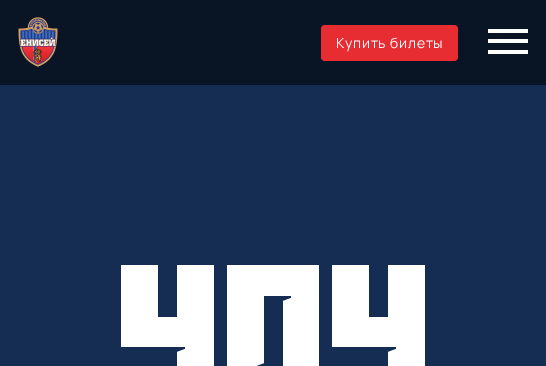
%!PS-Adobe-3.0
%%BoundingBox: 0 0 546 366
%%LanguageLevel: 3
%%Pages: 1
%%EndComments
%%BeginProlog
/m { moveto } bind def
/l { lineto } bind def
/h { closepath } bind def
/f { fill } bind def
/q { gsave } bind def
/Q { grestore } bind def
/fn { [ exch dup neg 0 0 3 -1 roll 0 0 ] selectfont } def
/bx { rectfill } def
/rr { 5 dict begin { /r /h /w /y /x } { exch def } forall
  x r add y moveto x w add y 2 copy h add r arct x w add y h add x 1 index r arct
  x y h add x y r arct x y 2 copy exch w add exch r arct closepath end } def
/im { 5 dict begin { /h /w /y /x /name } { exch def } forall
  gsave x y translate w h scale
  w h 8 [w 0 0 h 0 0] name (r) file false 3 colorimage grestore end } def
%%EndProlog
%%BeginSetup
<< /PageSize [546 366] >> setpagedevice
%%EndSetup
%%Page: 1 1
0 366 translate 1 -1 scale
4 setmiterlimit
0.082 0.176 0.325 setrgbcolor
0 0 546 366 bx
0.035 0.078 0.145 setrgbcolor
0 0 546 85 bx
(image0.raw) 18 17 40 50 im
0.906 0.173 0.196 setrgbcolor
321 25 137 36 4 rr f
/Manrope-Regular 14 fn
1 setgray
336 48 m 0.75 0 (Купить билеты) ashow
488 29 40 4 bx
488 39 40 4 bx
488 50 40 4 bx
177 265 m 214 265 l 214 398 l 177 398 l 177 352 l 185 349 l 185 347 l 121 347 l 121 265 l 158 265 l 158 317 l 177 317 l h f
q
227 265 92 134 rectclip
256 366 m 256 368 l 283 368 l 283 301 l 291 298 l 291 296 l 264 296 l 264 363 l h 227 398 m 227 265 l 320 265 l 320 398 l h f
Q
388 265 m 425 265 l 425 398 l 388 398 l 388 352 l 396 349 l 396 347 l 332 347 l 332 265 l 369 265 l 369 317 l 388 317 l h f
showpage
%%EOF
